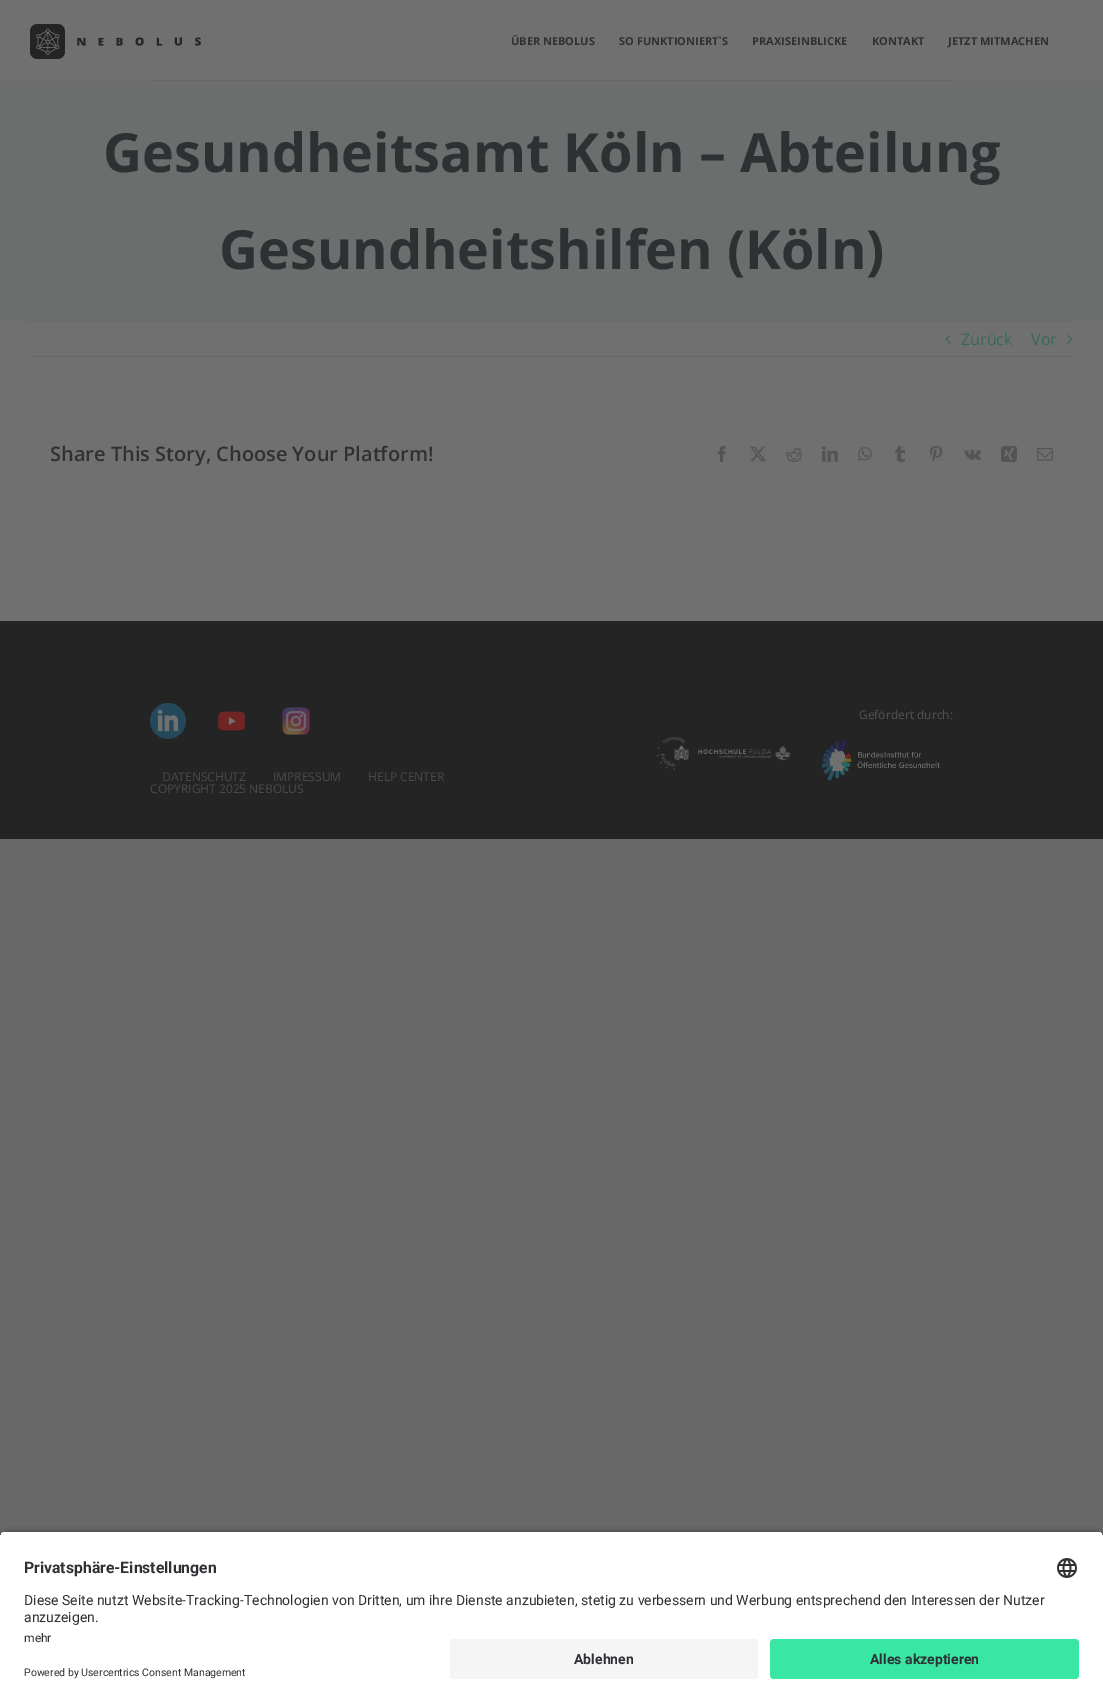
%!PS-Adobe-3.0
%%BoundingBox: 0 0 1103 1703
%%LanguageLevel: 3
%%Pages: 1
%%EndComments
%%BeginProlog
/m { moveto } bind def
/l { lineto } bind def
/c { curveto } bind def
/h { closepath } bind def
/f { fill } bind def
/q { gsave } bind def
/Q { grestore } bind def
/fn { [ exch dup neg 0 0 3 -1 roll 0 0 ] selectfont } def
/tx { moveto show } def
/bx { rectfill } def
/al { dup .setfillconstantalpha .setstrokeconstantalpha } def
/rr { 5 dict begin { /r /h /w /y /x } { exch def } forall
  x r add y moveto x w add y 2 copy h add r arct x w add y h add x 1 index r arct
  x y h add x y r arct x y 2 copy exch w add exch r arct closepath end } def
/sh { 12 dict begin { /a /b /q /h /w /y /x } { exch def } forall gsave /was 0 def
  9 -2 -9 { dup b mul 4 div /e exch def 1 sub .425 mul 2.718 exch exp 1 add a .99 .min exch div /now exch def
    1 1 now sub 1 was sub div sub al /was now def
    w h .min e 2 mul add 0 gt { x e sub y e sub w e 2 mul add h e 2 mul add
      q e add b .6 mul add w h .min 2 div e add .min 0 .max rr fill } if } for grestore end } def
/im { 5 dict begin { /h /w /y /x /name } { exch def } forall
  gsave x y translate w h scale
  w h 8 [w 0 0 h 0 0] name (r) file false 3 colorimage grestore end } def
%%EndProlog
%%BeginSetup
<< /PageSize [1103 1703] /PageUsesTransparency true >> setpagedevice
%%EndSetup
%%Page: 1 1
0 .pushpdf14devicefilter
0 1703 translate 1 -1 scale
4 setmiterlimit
0.408 setgray
0 0 1103 1703 bx
0.439 setgray
0 0 1103 621 bx
(image0.raw) 30 24 171 35 im
/OpenSans-Bold 11 fn
0.18 0.188 0.2 setrgbcolor
(ÜBER NEBOLUS) 511 45 tx
(SO FUNKTIONIERT`S) 619 45 tx
(PRAXISEINBLICKE) 752 45 tx
(KONTAKT) 872 45 tx
(JETZT MITMACHEN) 948 45 tx
0.4 setgray
150 80 803 1 bx
0.424 0.427 0.427 setrgbcolor
0 81 1103 240 bx
/OpenSans-Bold 54 fn
0.18 0.188 0.2 setrgbcolor
(Gesundheitsamt Köln – Abteilung) 103 172 tx
(Gesundheitshilfen \(Köln\)) 219 269 tx
0.408 setgray
30 321 1043 1 bx
30 356 1043 1 bx
(image1.raw) 945 335 6 9 im
/OpenSans-Regular 16 fn
0.208 0.412 0.333 setrgbcolor
(Zurück) 961 345 tx
(Vor) 1031 345 tx
(image2.raw) 1067 335 6 9 im
/OpenSans-SemiBold 20 fn
0.18 0.188 0.2 setrgbcolor
(Share This Story, Choose Your Platform!) 50 461 tx
(image3.raw) 718 446 8 16 im
(image4.raw) 750 446 16 16 im
(image5.raw) 786 448 16 14 im
(image6.raw) 822 446 16 16 im
(image7.raw) 858 447 14 14 im
(image8.raw) 895 446 10 16 im
(image9.raw) 929 446 14 16 im
(image10.raw) 964 450 18 10 im
(image11.raw) 1001 446 16 16 im
(image12.raw) 1037 448 16 13 im
0.141 setgray
0 621 1103 218 bx
/OpenSans-Regular 12 fn
0.322 setgray
(Gefördert durch:) 859 719 tx
(image13.raw) 656 736 135 35 im
(image14.raw) 821 739 119 42 im
(image15.raw) 150 703 36 36 im
(image16.raw) 218 711 27 20 im
(image17.raw) 282 707 28 28 im
0.29 setgray
(DATENSCHUTZ) 162 781 tx
(IMPRESSUM) 273 781 tx
(HELP CENTER) 368 781 tx
(COPYRIGHT 2025 NEBOLUS) 150 793 tx
0 setgray
0 1534 1103 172 8 3.5 0.8 sh
q
8 1531 m 1095 1531 l 1099.5 1531 1103 1534.5 1103 1539 c 1103 1631 l 0 1631 l 0 1539 l 0 1534.5 3.5 1531 8 1531 c h clip newpath
1 setgray
0 1532 1103 99 bx
Q
/Roboto-Bold 15.75 fn
0.18 0.188 0.2 setrgbcolor
(Privatsphäre-Einstellungen) 24 1573 tx
(image18.raw) 1057 1558 20 20 im
/Roboto-Regular 14 fn
(Diese Seite nutzt Website-Tracking-Technologien von Dritten, um ihre Dienste anzubieten, stetig zu verbessern und Werbung entsprechend den Interessen der Nutzer) 24 1605 tx
(anzuzeigen.) 24 1622 tx
1 setgray
0 1631 1103 72 bx
/Roboto-Regular 12 fn
0.18 0.188 0.2 setrgbcolor
(mehr) 24 1642 tx
/Roboto-Regular 10.5 fn
(Powered by Usercentrics Consent Management) 24 1676 tx
0.961 setgray
450 1639 308 40 4 rr f
/Roboto-Bold 14 fn
0.18 0.188 0.2 setrgbcolor
(Ablehnen) 574 1664 tx
0.224 0.902 0.643 setrgbcolor
770 1639 309 40 4 rr f
0.18 0.188 0.2 setrgbcolor
(Alles akzeptieren) 870 1664 tx
.poppdf14devicefilter showpage
%%EOF
